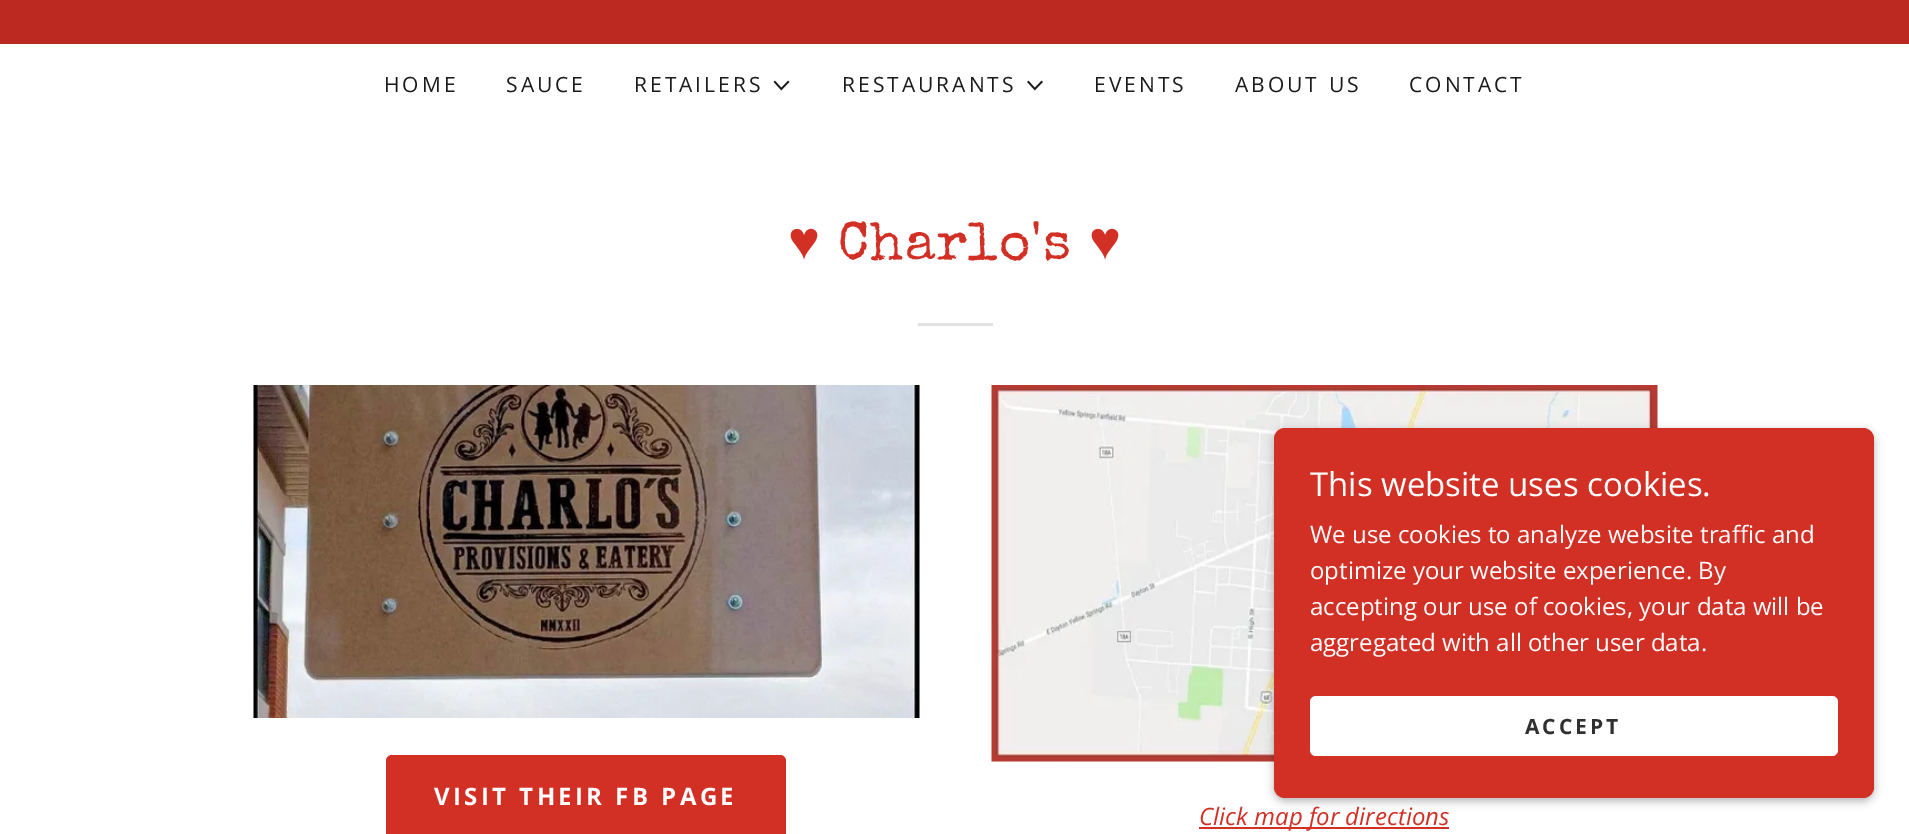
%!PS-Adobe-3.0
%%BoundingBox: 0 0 1909 834
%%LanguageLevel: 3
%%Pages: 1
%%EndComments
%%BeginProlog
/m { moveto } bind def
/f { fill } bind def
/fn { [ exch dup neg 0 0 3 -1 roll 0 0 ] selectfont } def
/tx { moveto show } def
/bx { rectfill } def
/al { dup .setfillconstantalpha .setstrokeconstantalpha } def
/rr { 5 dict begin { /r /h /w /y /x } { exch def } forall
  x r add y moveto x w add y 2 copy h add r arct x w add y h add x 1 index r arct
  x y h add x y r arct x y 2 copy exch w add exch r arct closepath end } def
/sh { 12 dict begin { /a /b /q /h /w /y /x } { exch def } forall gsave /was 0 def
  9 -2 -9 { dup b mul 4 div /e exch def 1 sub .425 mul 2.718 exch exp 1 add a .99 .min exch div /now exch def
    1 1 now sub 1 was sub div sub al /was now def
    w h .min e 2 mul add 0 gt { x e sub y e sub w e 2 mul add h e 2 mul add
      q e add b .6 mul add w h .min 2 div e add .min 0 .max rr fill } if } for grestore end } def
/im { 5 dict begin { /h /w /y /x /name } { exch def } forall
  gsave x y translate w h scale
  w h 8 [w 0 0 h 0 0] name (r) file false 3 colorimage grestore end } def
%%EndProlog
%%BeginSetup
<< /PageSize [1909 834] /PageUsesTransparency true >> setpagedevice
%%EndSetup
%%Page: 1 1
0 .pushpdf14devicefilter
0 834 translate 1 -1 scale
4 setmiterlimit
0.737 0.161 0.125 setrgbcolor
0 0 1909 834 bx
1 setgray
0 44 1909 790 bx
/OpenSans-Regular 21 fn
0.106 setgray
384 92 m 3 0 (HOME) ashow
506 92 m 3 0 (SAUCE) ashow
634 92 m 3 0 (RETAILERS) ashow
(image0.raw) 773 80 17 11 im
842 92 m 3 0 (RESTAURANTS) ashow
(image1.raw) 1027 80 16 11 im
1094 92 m 3 0 (EVENTS) ashow
1235 92 m 3 0 (ABOUT US) ashow
1409 92 m 3 0 (CONTACT) ashow
/LiberationSerif-Regular 54 fn
0.824 0.184 0.145 setrgbcolor
788 259 m 1 0 (♥) ashow
/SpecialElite-Regular 54 fn
838 259 m 1 0 (Charlo's) ashow
/LiberationSerif-Regular 54 fn
1089 259 m 1 0 (♥) ashow
0.886 setgray
918 323 75 3 bx
(image2.raw) 253 385 667 333 im
0.824 0.184 0.145 setrgbcolor
386 755 400 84 6 rr f
/OpenSans-Bold 24 fn
1 setgray
434 805 m 3.4 0 (VISIT THEIR FB PAGE) ashow
(image3.raw) 991 385 667 377 im
0.824 0.184 0.145 setrgbcolor
1199 827 250 2 bx
/OpenSans-Italic 24 fn
(Click map for directions) 1199 825 tx
0 setgray
1274 431 600 370 11 4.5 0.3 sh
0.824 0.184 0.145 setrgbcolor
1274 428 600 370 11 rr f
/OpenSans-Regular 33 fn
1 setgray
(This website uses cookies.) 1310 496 tx
/OpenSans-Regular 24 fn
(We use cookies to analyze website traffic and) 1310 543 tx
(optimize your website experience. By) 1310 579 tx
(accepting our use of cookies, your data will be) 1310 615 tx
(aggregated with all other user data.) 1310 651 tx
1310 696 528 60 6 rr f
/OpenSans-Bold 21 fn
0.188 setgray
1525 734 m 3 0 (ACCEPT) ashow
.poppdf14devicefilter showpage
%%EOF
